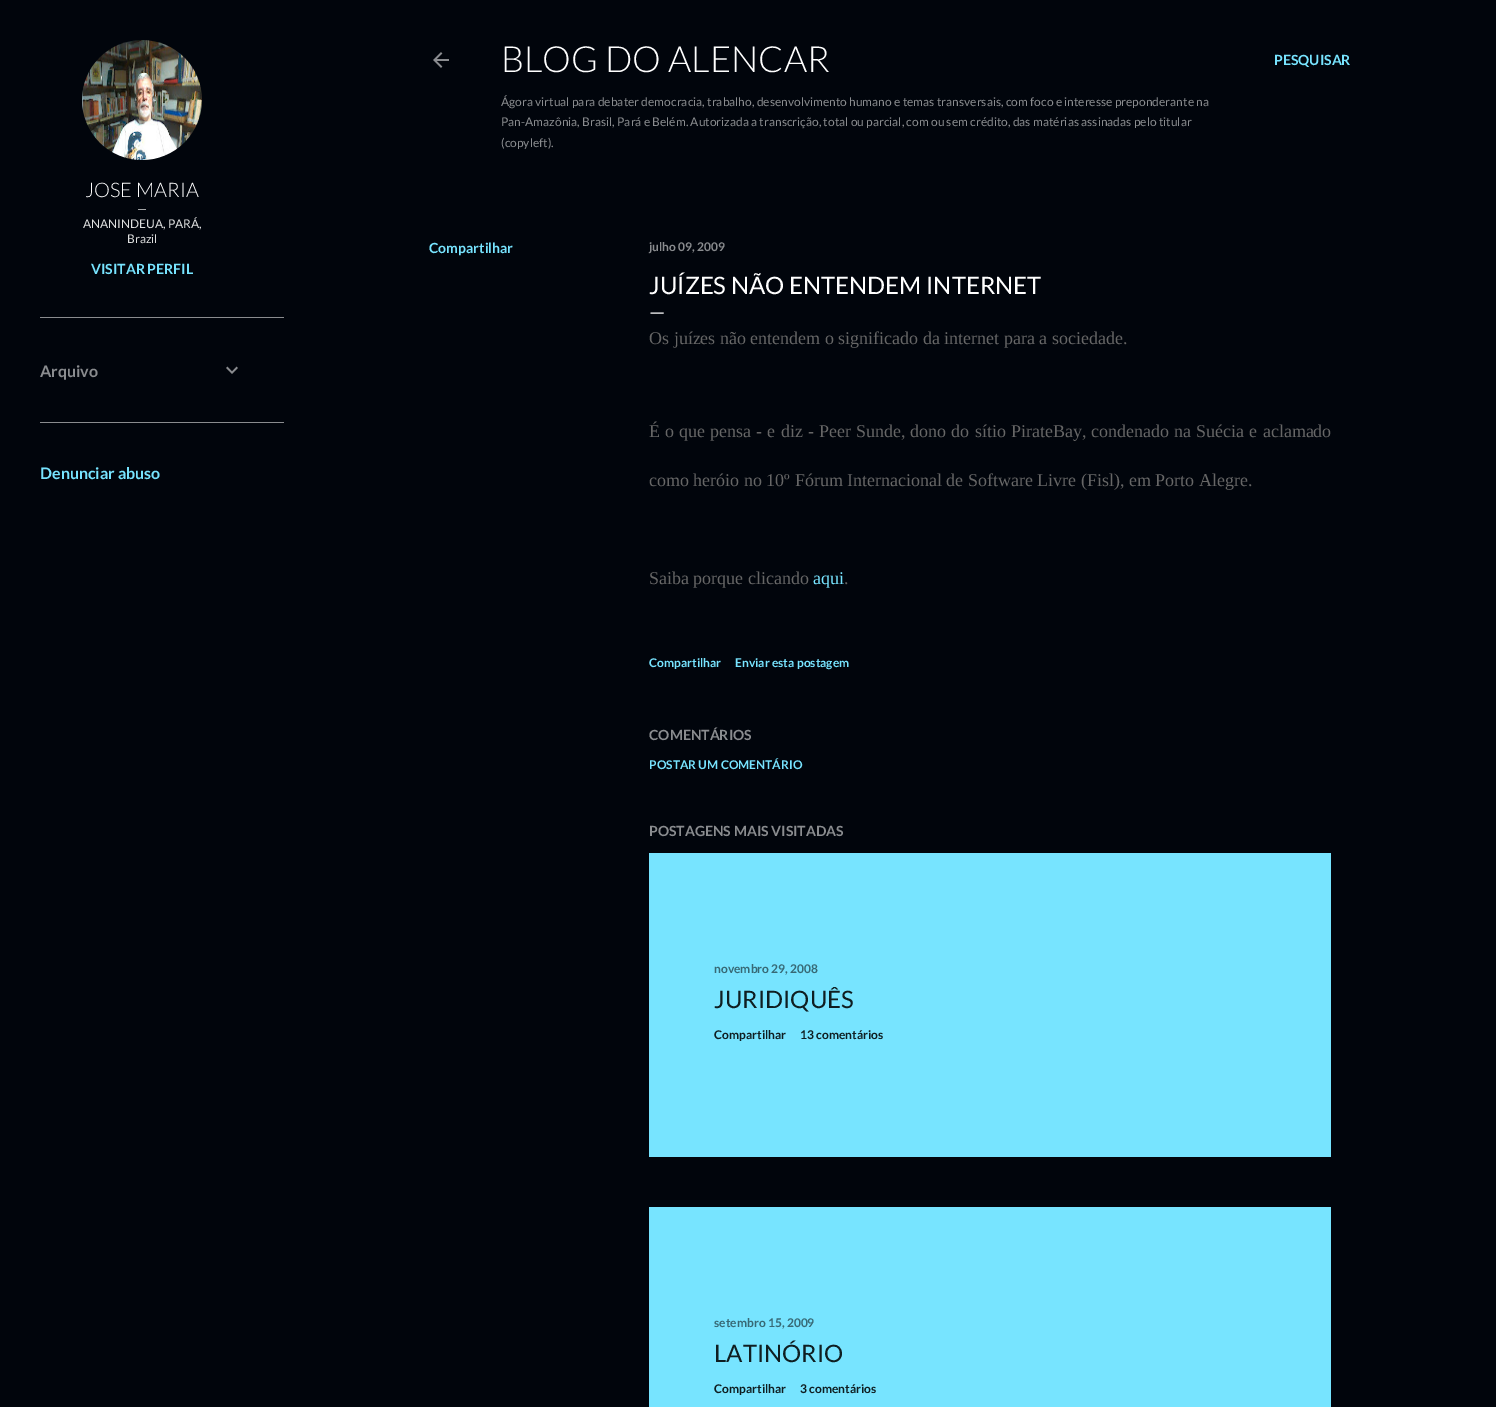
%!PS-Adobe-3.0
%%BoundingBox: 0 0 1496 1407
%%LanguageLevel: 3
%%Pages: 1
%%EndComments
%%BeginProlog
/m { moveto } bind def
/fn { [ exch dup neg 0 0 3 -1 roll 0 0 ] selectfont } def
/tx { moveto show } def
/bx { rectfill } def
/im { 5 dict begin { /h /w /y /x /name } { exch def } forall
  gsave x y translate w h scale
  w h 8 [w 0 0 h 0 0] name (r) file false 3 colorimage grestore end } def
%%EndProlog
%%BeginSetup
<< /PageSize [1496 1407] >> setpagedevice
%%EndSetup
%%Page: 1 1
0 1407 translate 1 -1 scale
4 setmiterlimit
0.004 0.02 0.047 setrgbcolor
0 0 1496 1407 bx
(image0.raw) 82 40 120 120 im
/Lato-Light 20 fn
1 setgray
(JOSE MARIA) 85 197 tx
/Lato-Regular 12 fn
0.871 0.875 0.875 setrgbcolor
(—) 137 213 tx
(ANANINDEUA, PARÁ,) 83 228 tx
(Brazil) 127 243 tx
/Lato-Bold 14 fn
0.467 0.894 1 setrgbcolor
(VISITAR PERFIL) 91 274 tx
0.541 0.549 0.561 setrgbcolor
40 317 244 1 bx
/Lato-Bold 16 fn
(Arquivo) 40 377 tx
(image1.raw) 226 366 12 8 im
40 422 244 1 bx
0.467 0.894 1 setrgbcolor
(Denunciar abuso) 40 479 tx
(image2.raw) 433 52 16 16 im
/Lato-Light 36 fn
1 setgray
(BLOG DO ALENCAR) 501 72 tx
/Lato-Regular 12 fn
0.541 0.549 0.561 setrgbcolor
(Ágora virtual para debater democracia, trabalho, desenvolvimento humano e temas transversais, com foco e interesse preponderante na) 501 106 tx
(Pan-Amazônia, Brasil, Pará e Belém. Autorizada a transcrição, total ou parcial, com ou sem crédito, das matérias assinadas pelo titular) 501 126 tx
(\(copyleft\).) 501 147 tx
/Lato-Bold 14 fn
0.467 0.894 1 setrgbcolor
(PESQUISAR) 1274 65 tx
(Compartilhar) 429 253 tx
/Lato-Bold 12 fn
0.541 0.549 0.561 setrgbcolor
(julho 09, 2009) 649 251 tx
/Lato-Regular 24 fn
1 setgray
(JUÍZES NÃO ENTENDEM INTERNET) 649 294 tx
/Lato-Regular 20 fn
(—) 649 319 tx
/LiberationSerif-Regular 18 fn
0.4 setgray
(Os juízes não entendem o significado da internet para a sociedade.) 649 344 tx
649 437 m 0.6 0 32 (É o que pensa - e diz - Peer Sunde, dono do sítio PirateBay, condenado na Suécia e aclamado) widthshow
(como heróio no 10º Fórum Internacional de Software Livre \(Fisl\), em Porto Alegre.) 649 486 tx
(Saiba porque clicando) 649 584 tx
0.467 0.894 1 setrgbcolor
(aqui) 813 584 tx
0.4 setgray
(.) 844 584 tx
/Lato-Bold 12 fn
0.467 0.894 1 setrgbcolor
(Compartilhar) 649 667 tx
(Enviar esta postagem) 735 667 tx
/Lato-Bold 14 fn
0.541 0.549 0.561 setrgbcolor
(COMENTÁRIOS) 649 740 tx
/Lato-Bold 12 fn
0.467 0.894 1 setrgbcolor
(POSTAR UM COMENTÁRIO) 649 769 tx
/Lato-Bold 14 fn
0.541 0.549 0.561 setrgbcolor
(POSTAGENS MAIS VISITADAS) 649 836 tx
0.467 0.894 1 setrgbcolor
649 853 682 304 bx
/Lato-Bold 12 fn
0.216 0.412 0.459 setrgbcolor
(novembro 29, 2008) 714 973 tx
/Lato-Regular 24 fn
0.059 0.118 0.129 setrgbcolor
(JURIDIQUÊS) 714 1008 tx
/Lato-Bold 12 fn
(Compartilhar) 714 1039 tx
(13 comentários) 800 1039 tx
0.467 0.894 1 setrgbcolor
649 1207 682 200 bx
0.216 0.412 0.459 setrgbcolor
(setembro 15, 2009) 714 1327 tx
/Lato-Regular 24 fn
0.059 0.118 0.129 setrgbcolor
(LATINÓRIO) 714 1362 tx
/Lato-Bold 12 fn
(Compartilhar) 714 1393 tx
(3 comentários) 800 1393 tx
showpage
%%EOF
